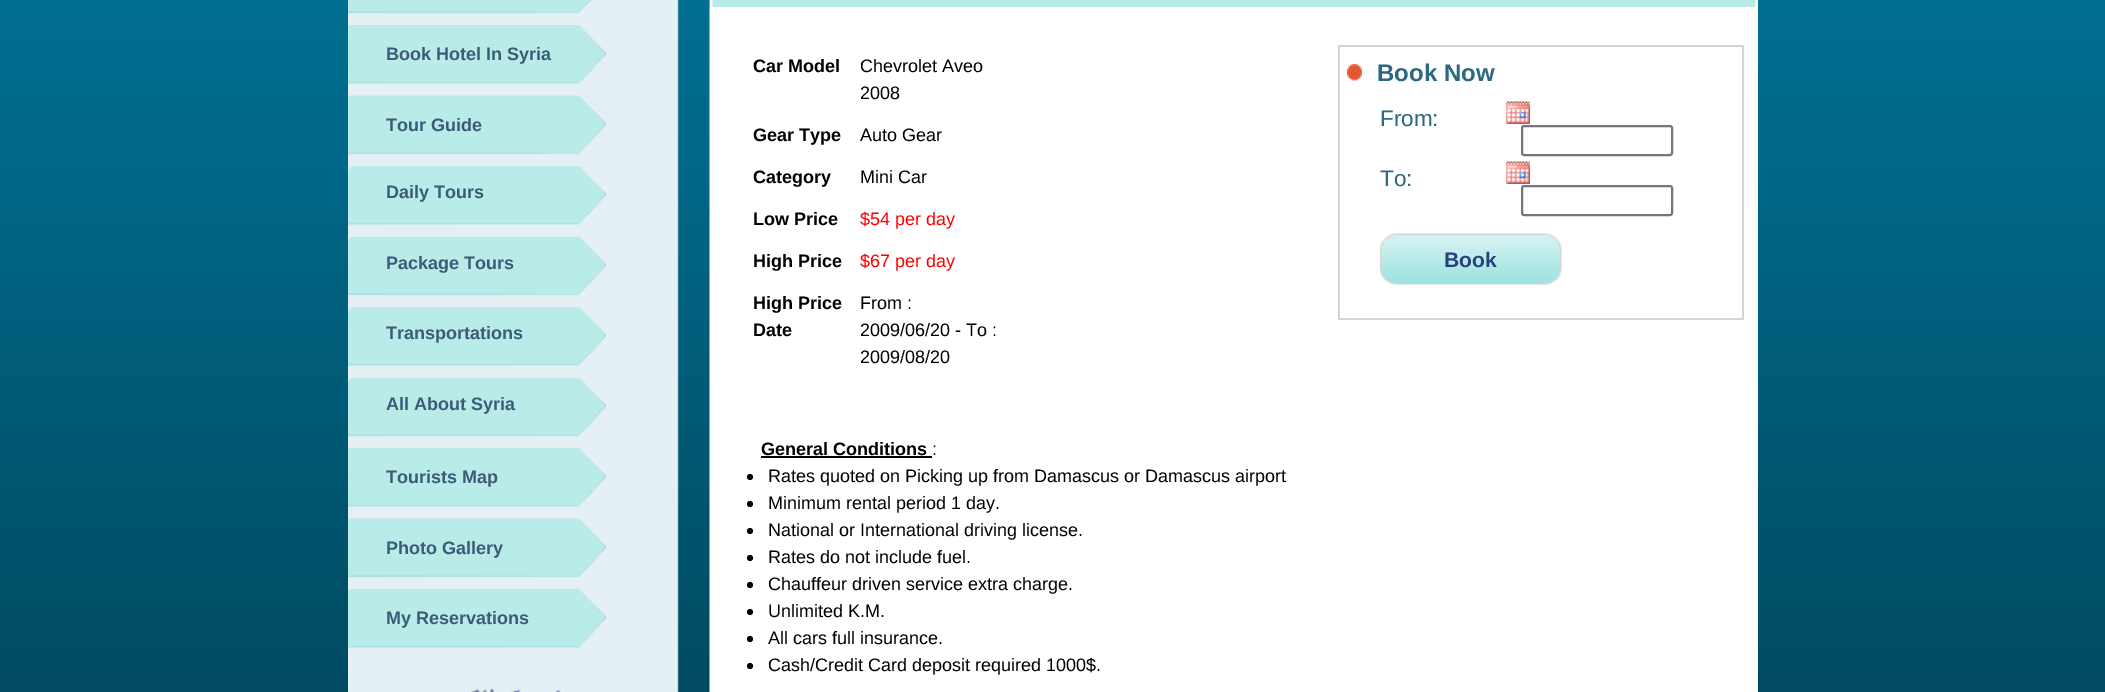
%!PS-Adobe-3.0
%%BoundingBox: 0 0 2105 692
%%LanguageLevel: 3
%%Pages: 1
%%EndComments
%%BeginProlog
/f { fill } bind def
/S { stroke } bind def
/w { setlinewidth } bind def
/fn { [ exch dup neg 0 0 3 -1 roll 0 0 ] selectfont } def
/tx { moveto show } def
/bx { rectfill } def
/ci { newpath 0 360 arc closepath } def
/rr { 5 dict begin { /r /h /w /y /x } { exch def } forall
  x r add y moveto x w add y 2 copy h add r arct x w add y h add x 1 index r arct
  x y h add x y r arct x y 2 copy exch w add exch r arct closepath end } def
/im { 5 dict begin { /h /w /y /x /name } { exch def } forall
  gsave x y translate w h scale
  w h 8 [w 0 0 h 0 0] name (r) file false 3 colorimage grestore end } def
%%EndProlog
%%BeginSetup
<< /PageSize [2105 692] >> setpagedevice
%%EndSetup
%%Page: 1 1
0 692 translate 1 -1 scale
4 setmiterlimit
1 setgray
0 0 2105 692 bx
(image0.raw) 0 0 2105 692 im
(image1.raw) 348 0 1410 692 im
(image2.raw) 348 0 244 14 im
(image3.raw) 348 25 258 59 im
/LiberationSans-Bold 18 fn
0.235 0.357 0.471 setrgbcolor
(Book Hotel In Syria) 386 60 tx
(image4.raw) 348 95 258 60 im
(Tour Guide) 386 131 tx
(image5.raw) 348 166 258 59 im
(Daily Tours) 386 198 tx
(image6.raw) 348 236 258 60 im
(Package Tours) 386 269 tx
(image5.raw) 348 307 258 59 im
(Transportations) 386 339 tx
(image6.raw) 348 377 258 60 im
(All About Syria) 386 410 tx
(image3.raw) 348 448 258 59 im
(Tourists Map) 386 483 tx
(image4.raw) 348 518 258 60 im
(Photo Gallery) 386 554 tx
(image3.raw) 348 589 258 59 im
(My Reservations) 386 624 tx
(image7.raw) 471 688 90 4 im
(image8.raw) 709 0 1048 7 im
0 setgray
(Car Model) 753 72 tx
/LiberationSans-Regular 18 fn
(Chevrolet Aveo) 860 72 tx
(2008) 860 99 tx
/LiberationSans-Bold 18 fn
(Gear Type) 753 141 tx
/LiberationSans-Regular 18 fn
(Auto Gear) 860 141 tx
/LiberationSans-Bold 18 fn
(Category) 753 183 tx
/LiberationSans-Regular 18 fn
(Mini Car) 860 183 tx
/LiberationSans-Bold 18 fn
(Low Price) 753 225 tx
/LiberationSans-Regular 18 fn
1 0 0 setrgbcolor
($54 per day) 860 225 tx
/LiberationSans-Bold 18 fn
0 setgray
(High Price) 753 267 tx
/LiberationSans-Regular 18 fn
1 0 0 setrgbcolor
($67 per day) 860 267 tx
/LiberationSans-Bold 18 fn
0 setgray
(High Price) 753 309 tx
(Date) 753 336 tx
/LiberationSans-Regular 18 fn
(From :) 860 309 tx
(2009/06/20 - To :) 860 336 tx
(2009/08/20) 860 363 tx
/LiberationSans-Bold 18 fn
(General Conditions) 761 455 tx
761 456 171 2 bx
/LiberationSans-Regular 18 fn
(:) 932 455 tx
750 477 3 ci f
(Rates quoted on Picking up from Damascus or Damascus airport) 768 482 tx
750 504 3 ci f
(Minimum rental period 1 day.) 768 509 tx
750 531 3 ci f
(National or International driving license.) 768 536 tx
750 558 3 ci f
(Rates do not include fuel.) 768 563 tx
750 585 3 ci f
(Chauffeur driven service extra charge.) 768 590 tx
750 612 3 ci f
(Unlimited K.M.) 768 617 tx
750 639 3 ci f
(All cars full insurance.) 768 644 tx
750 666 3 ci f
(Cash/Credit Card deposit required 1000$.) 768 671 tx
0.831 setgray
1338 45 405 2 bx
1742 45 2 275 bx
1338 318 405 2 bx
1338 45 2 275 bx
(image9.raw) 1347 64 15 17 im
/LiberationSans-Bold 24 fn
0.173 0.408 0.506 setrgbcolor
(Book Now) 1377 81 tx
/LiberationSans-Regular 22.5 fn
(From:) 1380 126 tx
(image10.raw) 1506 101 24 23 im
0.463 setgray
2 w
1522 126 150 29 2 rr S
0.173 0.408 0.506 setrgbcolor
(To:) 1380 186 tx
(image10.raw) 1506 161 24 23 im
0.463 setgray
1522 186 150 29 2 rr S
(image11.raw) 1380 233 182 52 im
/LiberationSans-Bold 21 fn
0.157 0.251 0.498 setrgbcolor
(Book) 1444 267 tx
showpage
%%EOF
